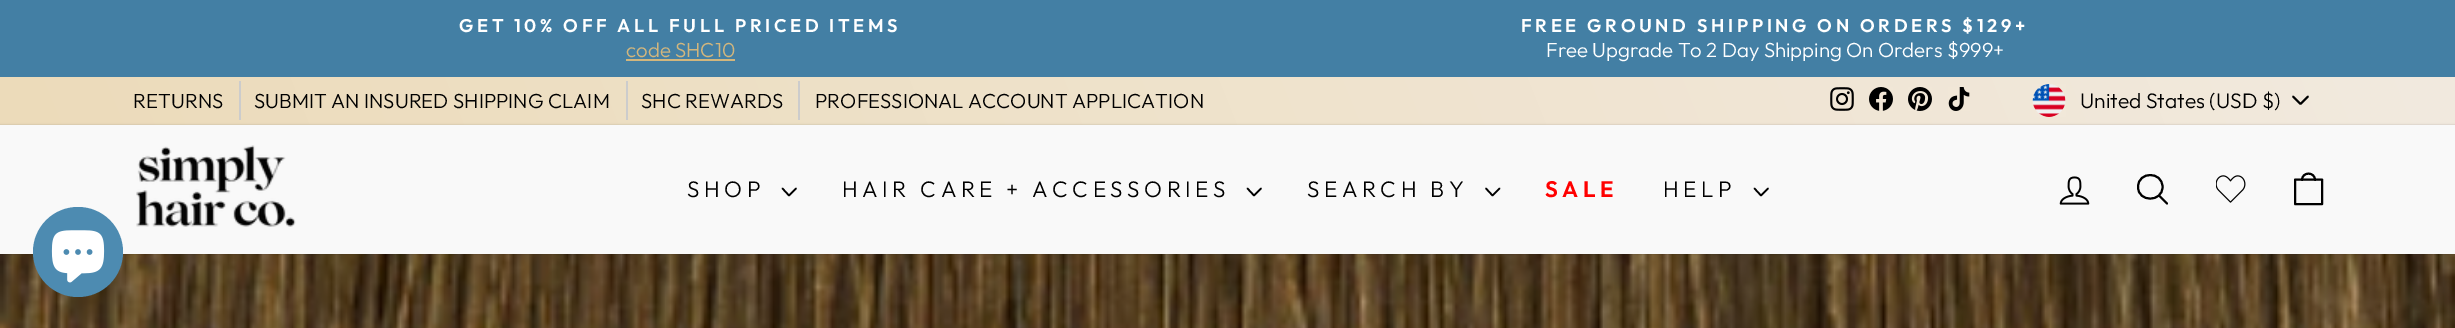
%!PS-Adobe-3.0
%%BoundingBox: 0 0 2455 328
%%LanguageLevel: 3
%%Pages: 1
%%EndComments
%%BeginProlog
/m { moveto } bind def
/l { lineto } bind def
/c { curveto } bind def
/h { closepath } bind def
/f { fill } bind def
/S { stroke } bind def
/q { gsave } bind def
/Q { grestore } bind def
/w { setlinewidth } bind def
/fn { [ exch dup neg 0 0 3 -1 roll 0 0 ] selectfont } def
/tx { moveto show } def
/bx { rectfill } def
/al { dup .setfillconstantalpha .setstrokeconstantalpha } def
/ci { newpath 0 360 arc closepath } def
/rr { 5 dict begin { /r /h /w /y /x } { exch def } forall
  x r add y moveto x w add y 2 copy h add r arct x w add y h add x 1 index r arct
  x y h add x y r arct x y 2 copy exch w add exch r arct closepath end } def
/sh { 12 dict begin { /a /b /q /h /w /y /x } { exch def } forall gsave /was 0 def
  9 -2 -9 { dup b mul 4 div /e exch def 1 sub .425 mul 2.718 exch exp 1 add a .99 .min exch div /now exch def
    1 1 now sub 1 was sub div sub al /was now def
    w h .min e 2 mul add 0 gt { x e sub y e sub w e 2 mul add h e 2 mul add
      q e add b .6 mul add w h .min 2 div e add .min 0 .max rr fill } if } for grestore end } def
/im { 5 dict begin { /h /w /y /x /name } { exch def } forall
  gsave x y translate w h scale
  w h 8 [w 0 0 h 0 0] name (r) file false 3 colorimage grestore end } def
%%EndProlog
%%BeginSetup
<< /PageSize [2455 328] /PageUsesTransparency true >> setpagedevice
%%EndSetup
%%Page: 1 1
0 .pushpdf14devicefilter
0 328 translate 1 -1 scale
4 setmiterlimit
1 setgray
0 0 2455 328 bx
0.263 0.498 0.643 setrgbcolor
0 0 2455 77 bx
/Outfit-SemiBold 18.35 fn
1 setgray
459 32 m 3.65 0 (GET 10% OFF ALL FULL PRICED ITEMS) ashow
/Outfit-Light 20.4 fn
0.824 0.714 0.49 setrgbcolor
(code SHC10) 626 57 tx
626 59 109 2 bx
/Outfit-SemiBold 18.35 fn
1 setgray
1521 32 m 3.65 0 (FREE GROUND SHIPPING ON ORDERS $129+) ashow
/Outfit-Light 20.4 fn
(Free Upgrade To 2 Day Shipping On Orders $999+) 1546 57 tx
q 0 77 m 2455 77 l 2455 125 l 0 125 l h clip newpath
<< /ShadingType 2 /ColorSpace /DeviceRGB /Coords [164 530 2292 -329] /Extend [true true] /Function << /FunctionType 2 /Domain [0 1] /C0 [0.925 0.859 0.729] /C1 [0.949 0.918 0.875] /N 1 >> >> shfill Q
0.8 setgray
239 81 2 39 bx
0 setgray
(RETURNS) 133 108 tx
0.8 setgray
626 81 2 39 bx
0 setgray
(SUBMIT AN INSURED SHIPPING CLAIM) 254 108 tx
0.8 setgray
798 81 2 39 bx
0 setgray
(SHC REWARDS) 641 108 tx
(PROFESSIONAL ACCOUNT APPLICATION) 815 108 tx
(image0.raw) 1830 87 24 24 im
(image1.raw) 1869 87 24 24 im
(image2.raw) 1908 87 24 24 im
(image3.raw) 1948 87 22 24 im
(image4.raw) 2032 84 34 33 im
/Outfit-Light 21 fn
(United States \(USD $\)) 2080 108 tx
1.8 w
1 setlinecap
1 setlinejoin
2293 96.5 m 2300.5 104 l 2308 96.5 l S
(image8.raw) 0 254 2455 74 im
0 125 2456 129 0 1 0.2 sh
0.976 setgray
0 125 2455 129 bx
(image5.raw) 136 145 160 82 im
/Outfit-Light 22.5 fn
0 setgray
687 197 m 4.5 0 (SHOP) ashow
1.6 w
782.5 188.5 m 789 195.5 l 796 188.5 l S
842 197 m 4.5 0 (HAIR CARE + ACCESSORIES) ashow
1247.5 188.5 m 1254 195.5 l 1261 188.5 l S
1307 197 m 4.5 0 (SEARCH BY) ashow
1486 188.5 m 1492.5 195.5 l 1499.5 188.5 l S
/Outfit-SemiBold 22.5 fn
1 0 0 setrgbcolor
1545 197 m 4.5 0 (SALE) ashow
/Outfit-Light 22.5 fn
0 setgray
1663 197 m 4.5 0 (HELP) ashow
1754.5 188.5 m 1761 195.5 l 1768 188.5 l S
(image6.raw) 2059 176 31 29 im
2 w
2162.5 187 m 2162.5 202.5 2138 202.5 2138 187 c 2138 171 2162.5 171 2162.5 187 c h 2167 203.5 m 2159 195.5 l S
(image7.raw) 2216 175 30 28 im
2295 179.5 m 2322 179.5 l 2322 204 l 2295 204 l h 2302 180 m 2302 171.5 2315 171.5 2315 180 c S
0.302 0.545 0.694 setrgbcolor
78 252 45 ci f
(image9.raw) 51 230 54 53 im
.poppdf14devicefilter showpage
%%EOF
